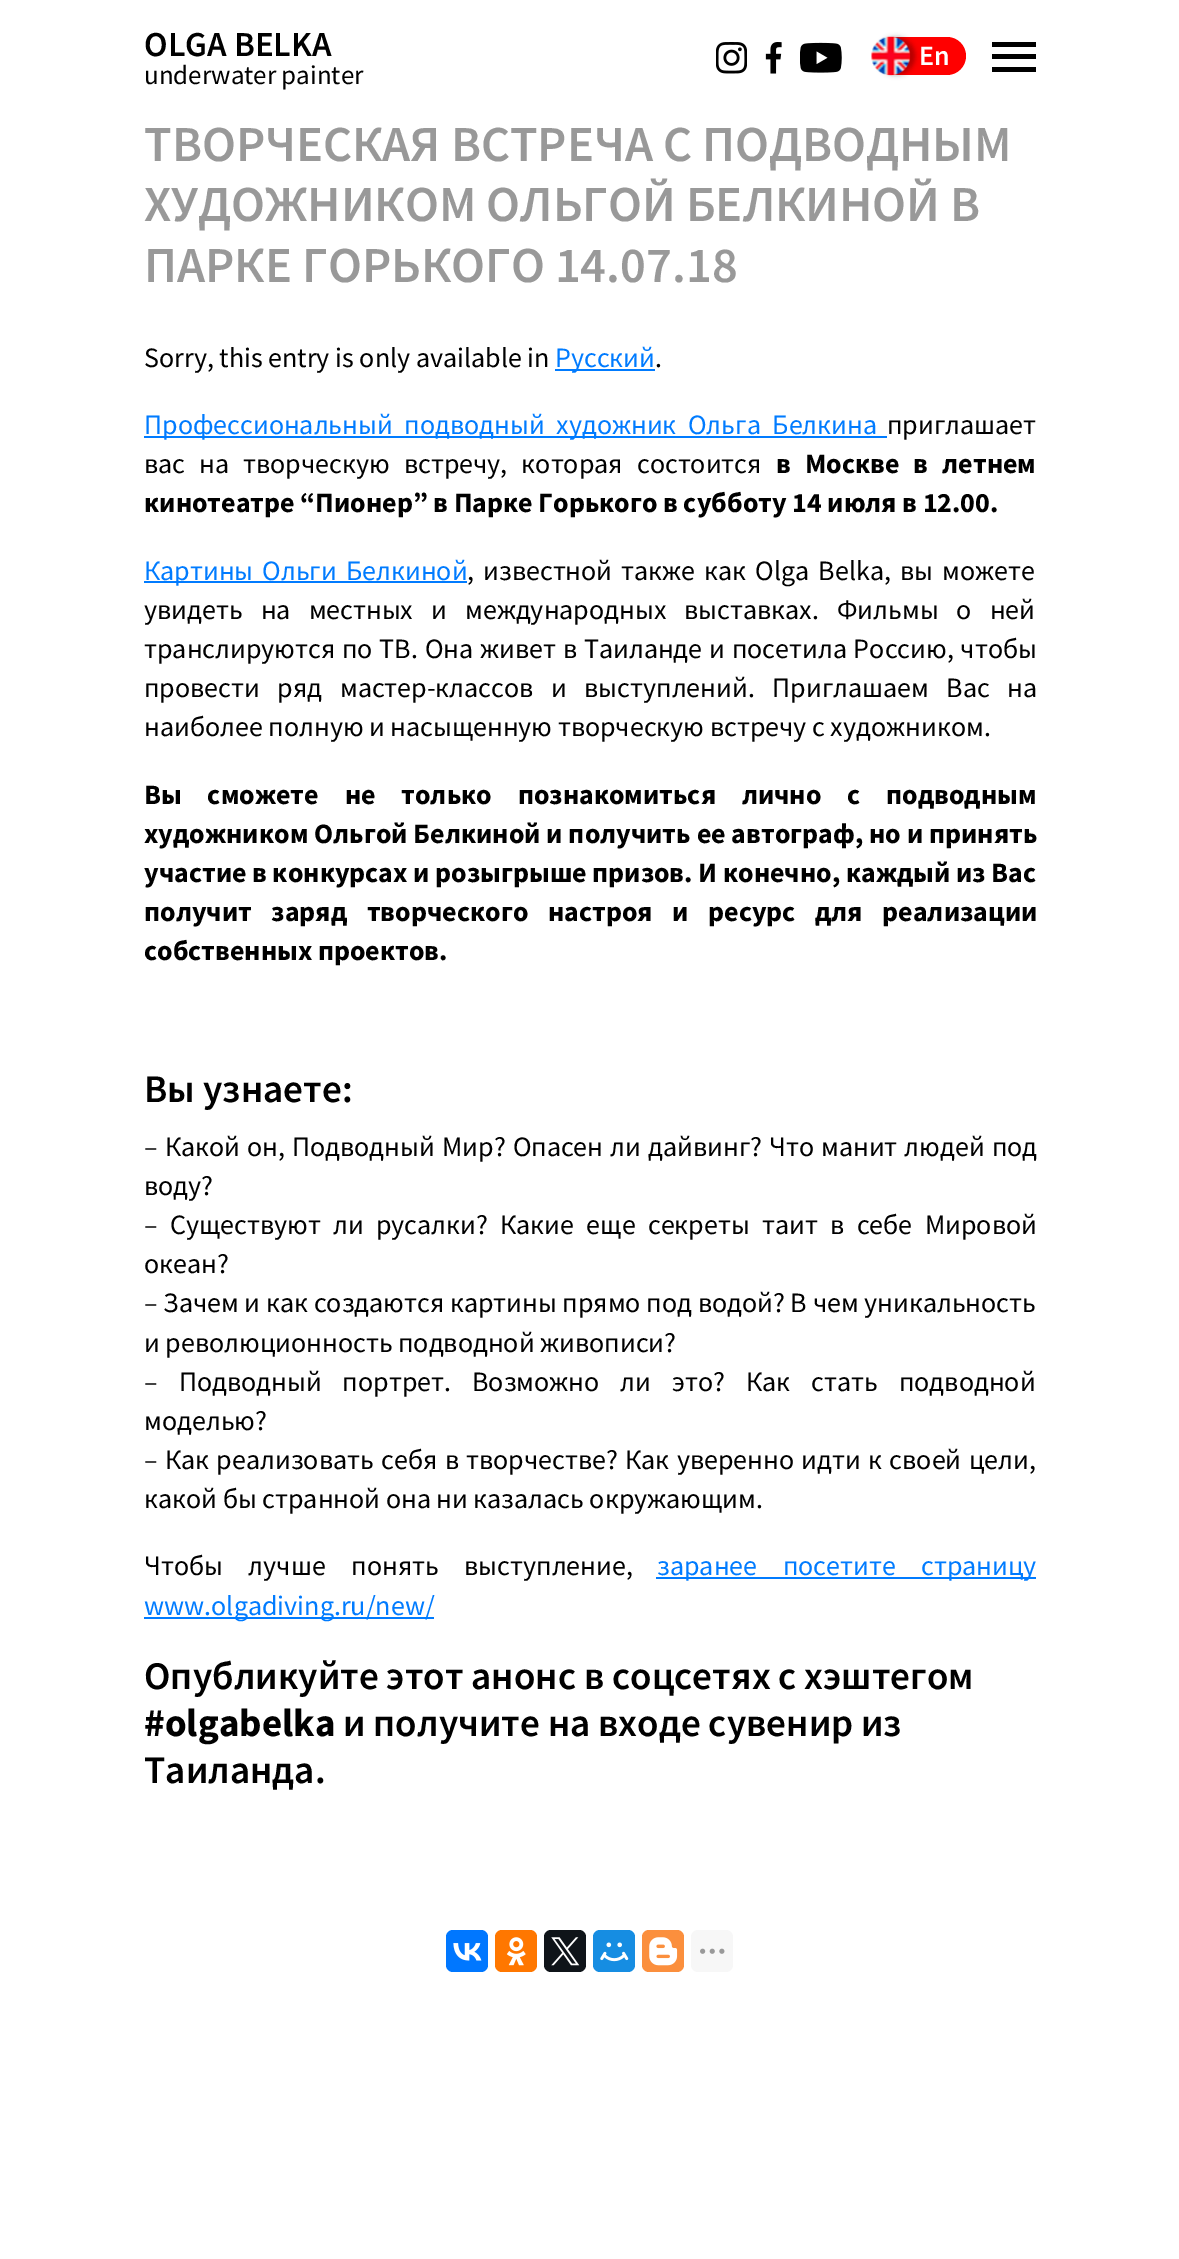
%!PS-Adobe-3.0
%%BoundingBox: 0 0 1179 2259
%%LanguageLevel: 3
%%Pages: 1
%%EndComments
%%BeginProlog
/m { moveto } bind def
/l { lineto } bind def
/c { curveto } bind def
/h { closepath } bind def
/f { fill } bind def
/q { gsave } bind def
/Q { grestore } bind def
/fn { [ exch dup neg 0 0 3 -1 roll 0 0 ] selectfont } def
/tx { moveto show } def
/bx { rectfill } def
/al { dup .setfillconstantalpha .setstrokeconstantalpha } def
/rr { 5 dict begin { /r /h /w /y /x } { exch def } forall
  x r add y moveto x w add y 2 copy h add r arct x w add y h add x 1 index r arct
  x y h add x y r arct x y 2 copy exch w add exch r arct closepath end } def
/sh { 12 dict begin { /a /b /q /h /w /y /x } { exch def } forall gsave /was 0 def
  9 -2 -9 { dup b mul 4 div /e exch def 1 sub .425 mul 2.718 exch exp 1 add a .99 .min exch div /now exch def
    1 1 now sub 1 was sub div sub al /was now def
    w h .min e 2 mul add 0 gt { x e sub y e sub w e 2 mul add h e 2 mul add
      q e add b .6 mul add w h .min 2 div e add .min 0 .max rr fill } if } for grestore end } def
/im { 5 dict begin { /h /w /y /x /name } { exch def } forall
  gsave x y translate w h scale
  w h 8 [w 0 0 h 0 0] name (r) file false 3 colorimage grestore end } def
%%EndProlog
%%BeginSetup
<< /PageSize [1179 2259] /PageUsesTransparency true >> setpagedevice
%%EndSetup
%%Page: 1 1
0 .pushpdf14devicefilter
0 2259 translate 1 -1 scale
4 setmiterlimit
1 setgray
0 0 1179 2259 bx
/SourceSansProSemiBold-SemiBold 35 fn
0 setgray
(OLGA BELKA) 144 56 tx
/SourceSansPro-Regular 27 fn
(underwater painter) 144 84 tx
(image0.raw) 716 42 31 32 im
(image1.raw) 765 42 17 32 im
(image2.raw) 800 42 42 31 im
1 0 0 setrgbcolor
873 37 93 38 19 rr f
q
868 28 m 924 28 l 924 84 l 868 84 l h 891 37 m 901.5 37 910 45.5 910 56 c 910 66.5 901.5 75 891 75 c 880.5 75 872 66.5 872 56 c 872 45.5 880.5 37 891 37 c h eoclip newpath
0 setgray
877 37 38 38 19 2.5 0.3 sh
Q
(image3.raw) 871 36 40 40 im
/SourceSansProSemiBold-SemiBold 28 fn
1 setgray
(En) 919 65 tx
0 setgray
992 54 44 5 bx
992 42 44 5 bx
992 67 44 5 bx
/SourceSansProSemiBold-SemiBold 50.4 fn
0.6 setgray
(ТВОРЧЕСКАЯ ВСТРЕЧА С ПОДВОДНЫМ) 144 161 tx
(ХУДОЖНИКОМ ОЛЬГОЙ БЕЛКИНОЙ В) 144 221 tx
(ПАРКЕ ГОРЬКОГО 14.07.18) 144 282 tx
/SourceSansPro-Regular 28 fn
0 setgray
(Sorry, this entry is only available in) 144 367 tx
0 0.482 1 setrgbcolor
555 369 100 2 bx
(Русский) 555 367 tx
0 setgray
(.) 655 367 tx
0 0.482 1 setrgbcolor
144 436 743 2 bx
144 434 m 6 0 32 (Профессиональный подводный художник Ольга Белкина) widthshow
0 setgray
(приглашает) 887 434 tx
144 473 m 8.5 0 32 (вас на творческую встречу, которая состоится) widthshow
/SourceSansPro-Bold 28 fn
776 473 m 8.5 0 32 (в Москве в летнем) widthshow
(кинотеатре “Пионер” в Парке Горького в субботу 14 июля в 12.00.) 144 512 tx
0 0.482 1 setrgbcolor
144 581 323 2 bx
/SourceSansPro-Regular 28 fn
144 580 m 3.5 0 32 (Картины Ольги Белкиной) widthshow
0 setgray
467 580 m 3.5 0 32 (, известной также как Olga Belka, вы можете) widthshow
144 619 m 12.5 0 32 (увидеть на местных и международных выставках. Фильмы о ней) widthshow
144 658 m 1.25 0 32 (транслируются по ТВ. Она живет в Таиланде и посетила Россию, чтобы) widthshow
144 697 m 12 0 32 (провести ряд мастер-классов и выступлений. Приглашаем Вас на) widthshow
(наиболее полную и насыщенную творческую встречу с художником.) 144 736 tx
/SourceSansPro-Bold 28 fn
144 804 m 20.25 0 32 (Вы сможете не только познакомиться лично с подводным) widthshow
144 843 m 0.25 0 32 (художником Ольгой Белкиной и получить ее автограф, но и принять) widthshow
(участие в конкурсах и розыгрыше призов. И конечно, каждый из Вас) 144 882 tx
144 921 m 14 0 32 (получит заряд творческого настроя и ресурс для реализации) widthshow
(собственных проектов.) 144 960 tx
/SourceSansProSemiBold-SemiBold 39.2 fn
(Вы узнаете:) 144 1102 tx
/SourceSansPro-Regular 28 fn
144 1156 m 1.5 0 32 (– Какой он, Подводный Мир? Опасен ли дайвинг? Что манит людей под) widthshow
(воду?) 144 1195 tx
144 1234 m 6.75 0 32 (– Существуют ли русалки? Какие еще секреты таит в себе Мировой) widthshow
(океан?) 144 1273 tx
144 1312 m 0.1 0 32 (– Зачем и как создаются картины прямо под водой? В чем уникальность) widthshow
(и революционность подводной живописи?) 144 1352 tx
144 1391 m 15.5 0 32 (– Подводный портрет. Возможно ли это? Как стать подводной) widthshow
(моделью?) 144 1430 tx
144 1469 m 1.75 0 32 (– Как реализовать себя в творчестве? Как уверенно идти к своей цели,) widthshow
(какой бы странной она ни казалась окружающим.) 144 1508 tx
144 1575 m 20 0 32 (Чтобы лучше понять выступление,) widthshow
0 0.482 1 setrgbcolor
656 1577 380 2 bx
657 1575 m 20 0 32 (заранее посетите страницу) widthshow
144 1617 290 2 bx
(www.olgadiving.ru/new/) 144 1615 tx
/SourceSansProSemiBold-SemiBold 39.2 fn
0 setgray
(Опубликуйте этот анонс в соцсетях с хэштегом) 144 1689 tx
/SourceSansPro-Bold 39.2 fn
(#olgabelka) 144 1736 tx
/SourceSansProSemiBold-SemiBold 39.2 fn
(и получите на входе сувенир из) 343 1736 tx
(Таиланда.) 144 1783 tx
0 0.467 1 setrgbcolor
446 1930 42 42 7 rr f
(image4.raw) 453 1943 29 18 im
1 0.467 0 setrgbcolor
495 1930 42 42 7 rr f
(image5.raw) 506 1937 20 29 im
0.059 0.078 0.098 setrgbcolor
544 1930 42 42 7 rr f
(image6.raw) 551 1937 29 29 im
0.086 0.553 0.886 setrgbcolor
593 1930 42 42 7 rr f
(image7.raw) 600 1942 29 20 im
0.984 0.561 0.239 setrgbcolor
642 1930 42 42 7 rr f
(image8.raw) 649 1937 29 29 im
0.969 setgray
691 1930 42 42 7 rr f
(image9.raw) 700 1948 25 6 im
.poppdf14devicefilter showpage
%%EOF
